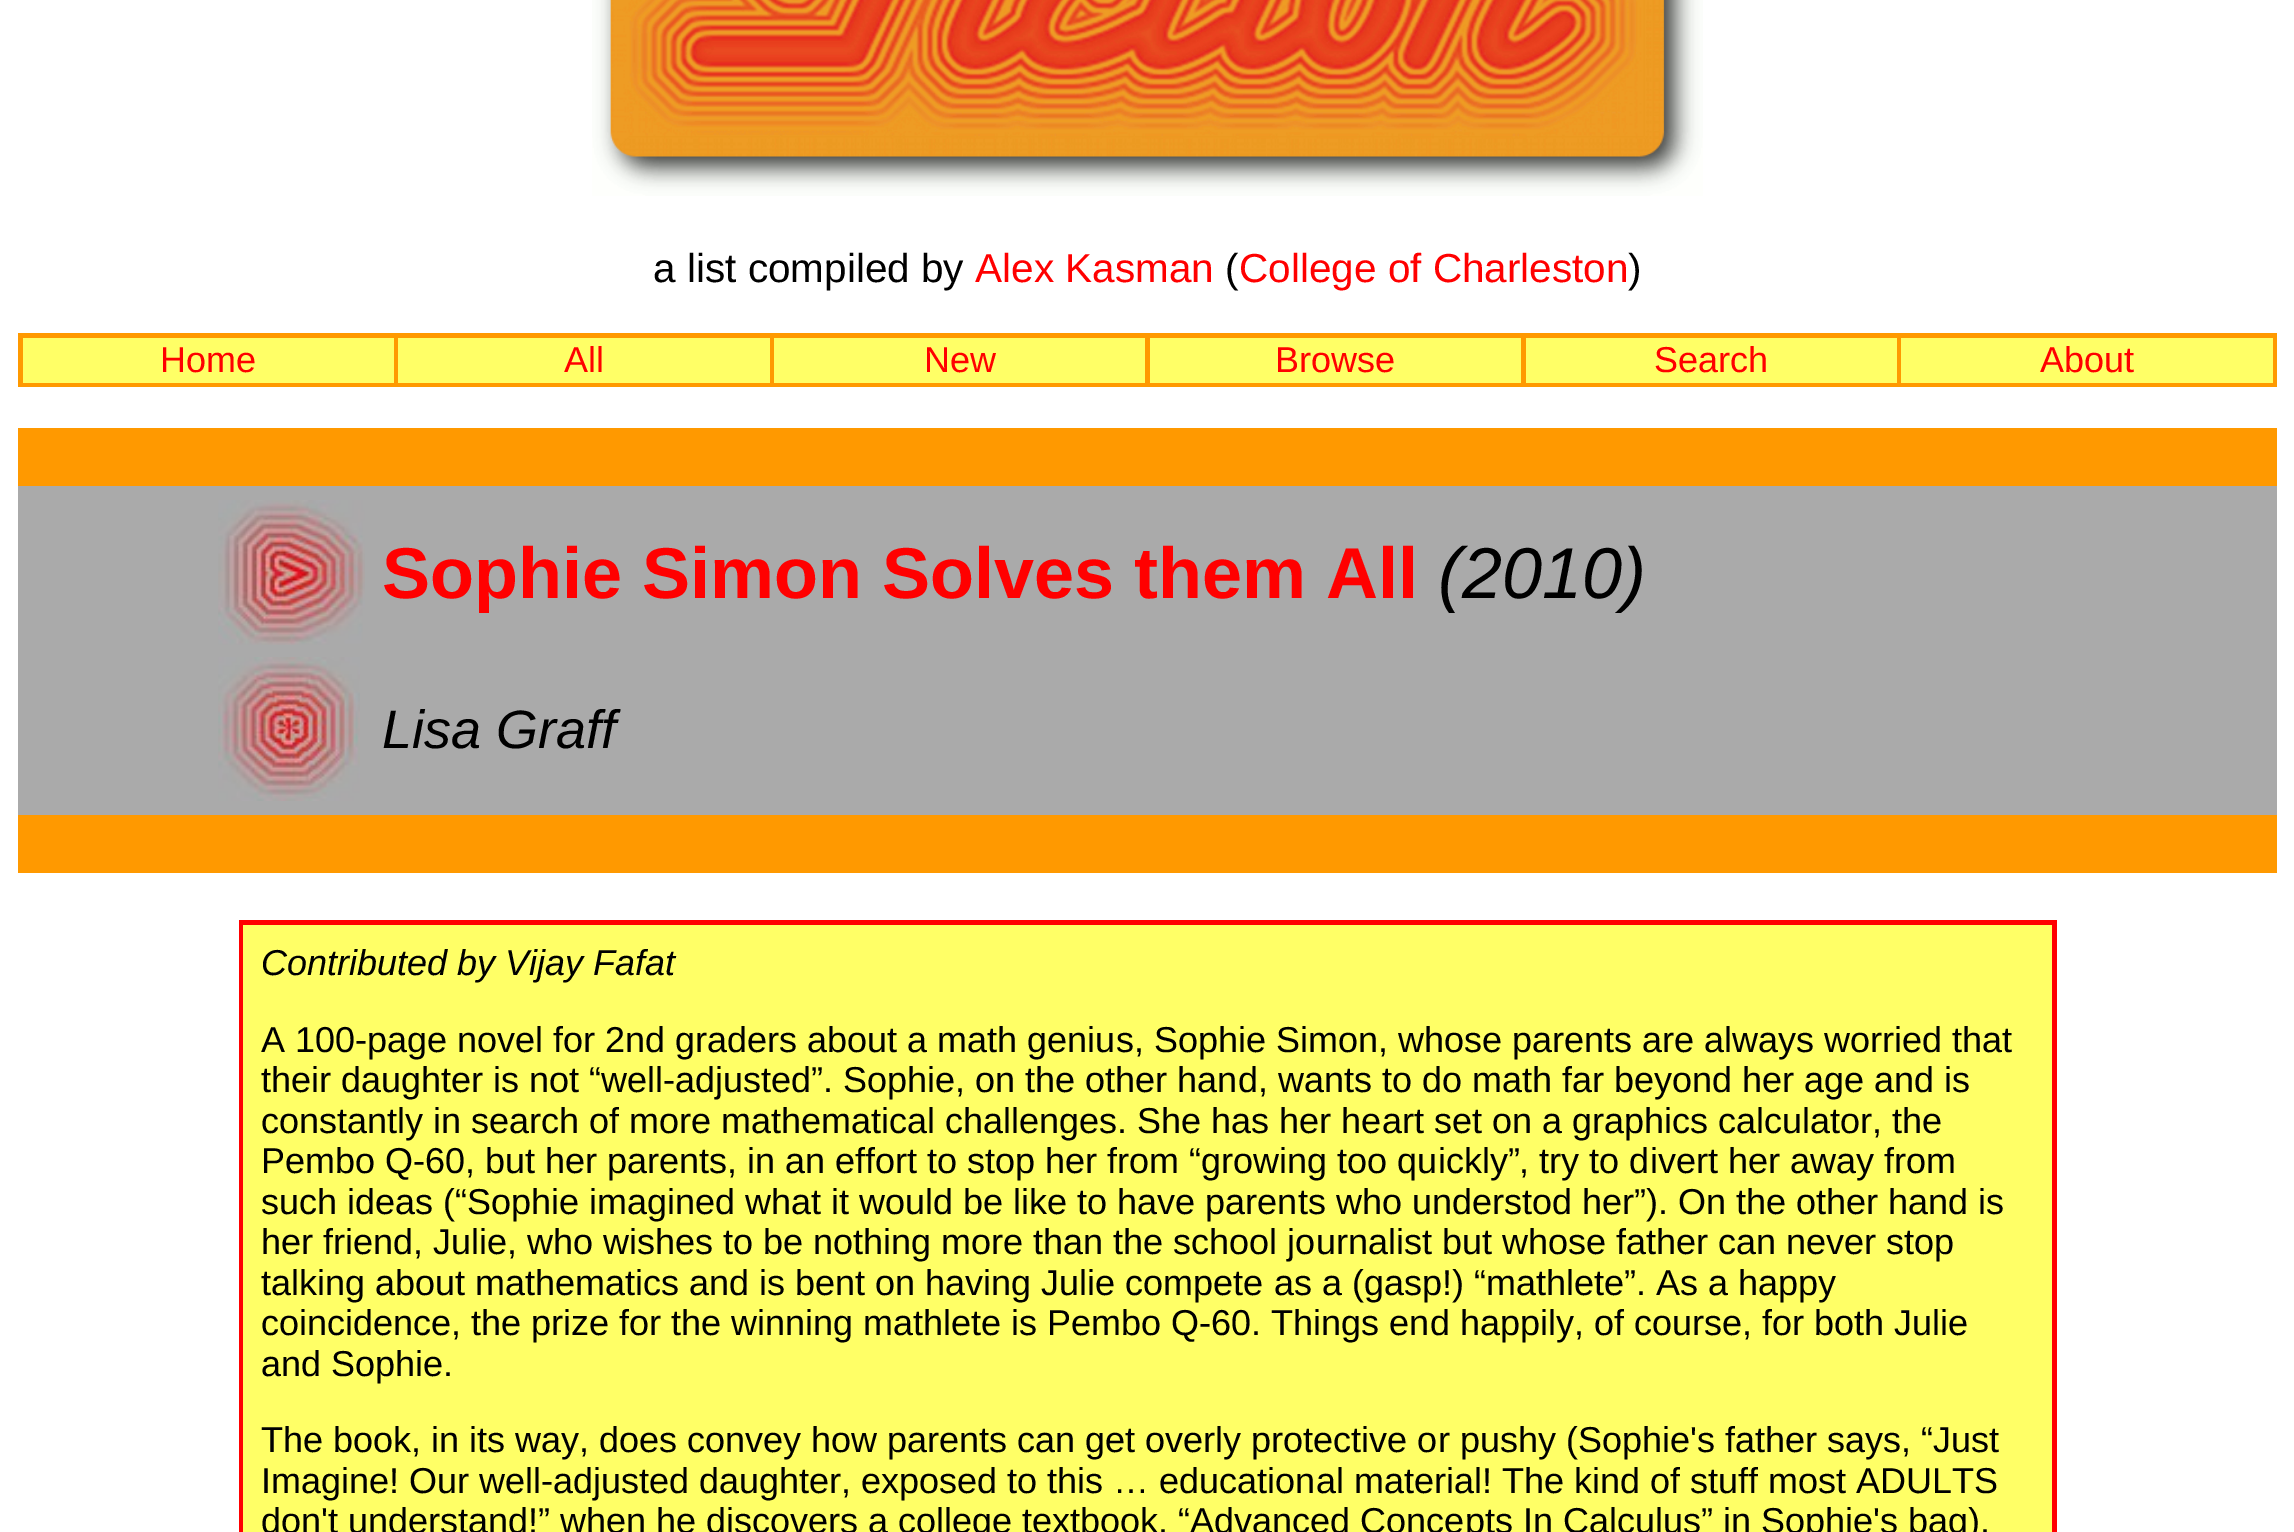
%!PS-Adobe-3.0
%%BoundingBox: 0 0 2294 1532
%%LanguageLevel: 3
%%Pages: 1
%%EndComments
%%BeginProlog
/fn { [ exch dup neg 0 0 3 -1 roll 0 0 ] selectfont } def
/tx { moveto show } def
/bx { rectfill } def
/im { 5 dict begin { /h /w /y /x /name } { exch def } forall
  gsave x y translate w h scale
  w h 8 [w 0 0 h 0 0] name (r) file false 3 colorimage grestore end } def
%%EndProlog
%%BeginSetup
<< /PageSize [2294 1532] >> setpagedevice
%%EndSetup
%%Page: 1 1
0 1532 translate 1 -1 scale
4 setmiterlimit
1 setgray
0 0 2294 1532 bx
(image0.raw) 592 0 1111 196 im
/LiberationSans-Regular 40.5 fn
0 setgray
(a list compiled by) 653 282 tx
1 0 0 setrgbcolor
(Alex Kasman) 975 282 tx
0 setgray
(\() 1225 282 tx
1 0 0 setrgbcolor
(College of Charleston) 1239 282 tx
0 setgray
(\)) 1628 282 tx
1 0.6 0 setrgbcolor
18 333 2259 54 bx
1 1 0.4 setrgbcolor
23 338 371 45 bx
/LiberationSans-Regular 36 fn
1 0 0 setrgbcolor
(Home) 160 372 tx
1 1 0.4 setrgbcolor
398 338 372 45 bx
1 0 0 setrgbcolor
(All) 564 372 tx
1 1 0.4 setrgbcolor
774 338 371 45 bx
1 0 0 setrgbcolor
(New) 924 372 tx
1 1 0.4 setrgbcolor
1150 338 371 45 bx
1 0 0 setrgbcolor
(Browse) 1275 372 tx
1 1 0.4 setrgbcolor
1526 338 371 45 bx
1 0 0 setrgbcolor
(Search) 1654 372 tx
1 1 0.4 setrgbcolor
1901 338 372 45 bx
1 0 0 setrgbcolor
(About) 2040 372 tx
1 0.6 0 setrgbcolor
18 428 2259 58 bx
0.667 setgray
18 486 2259 329 bx
(image1.raw) 218 500 147 145 im
/LiberationSans-Bold 72 fn
1 0 0 setrgbcolor
(Sophie Simon Solves them All) 382 598 tx
/LiberationSans-Italic 72 fn
0 setgray
(\(2010\)) 1438 598 tx
(image2.raw) 218 657 142 144 im
/LiberationSans-Italic 54 fn
(Lisa Graff) 382 748 tx
1 0.6 0 setrgbcolor
18 815 2259 58 bx
1 0 0 setrgbcolor
239 920 1818 612 bx
1 1 0.4 setrgbcolor
243 925 1809 607 bx
/LiberationSans-Italic 36 fn
0 setgray
(Contributed by Vijay Fafat) 261 975 tx
/LiberationSans-Regular 36 fn
(A 100-page novel for 2nd graders about a math genius, Sophie Simon, whose parents are always worried that) 261 1052 tx
(their daughter is not “well-adjusted”. Sophie, on the other hand, wants to do math far beyond her age and is) 261 1092 tx
(constantly in search of more mathematical challenges. She has her heart set on a graphics calculator, the) 261 1133 tx
(Pembo Q-60, but her parents, in an effort to stop her from “growing too quickly”, try to divert her away from) 261 1173 tx
(such ideas \(“Sophie imagined what it would be like to have parents who understod her”\). On the other hand is) 261 1214 tx
(her friend, Julie, who wishes to be nothing more than the school journalist but whose father can never stop) 261 1254 tx
(talking about mathematics and is bent on having Julie compete as a \(gasp!\) “mathlete”. As a happy) 261 1295 tx
(coincidence, the prize for the winning mathlete is Pembo Q-60. Things end happily, of course, for both Julie) 261 1335 tx
(and Sophie.) 261 1376 tx
(The book, in its way, does convey how parents can get overly protective or pushy \(Sophie's father says, “Just) 261 1452 tx
(Imagine! Our well-adjusted daughter, exposed to this … educational material! The kind of stuff most ADULTS) 261 1493 tx
(don't understand!” when he discovers a college textbook, “Advanced Concepts In Calculus” in Sophie's bag\).) 261 1533 tx
showpage
%%EOF
